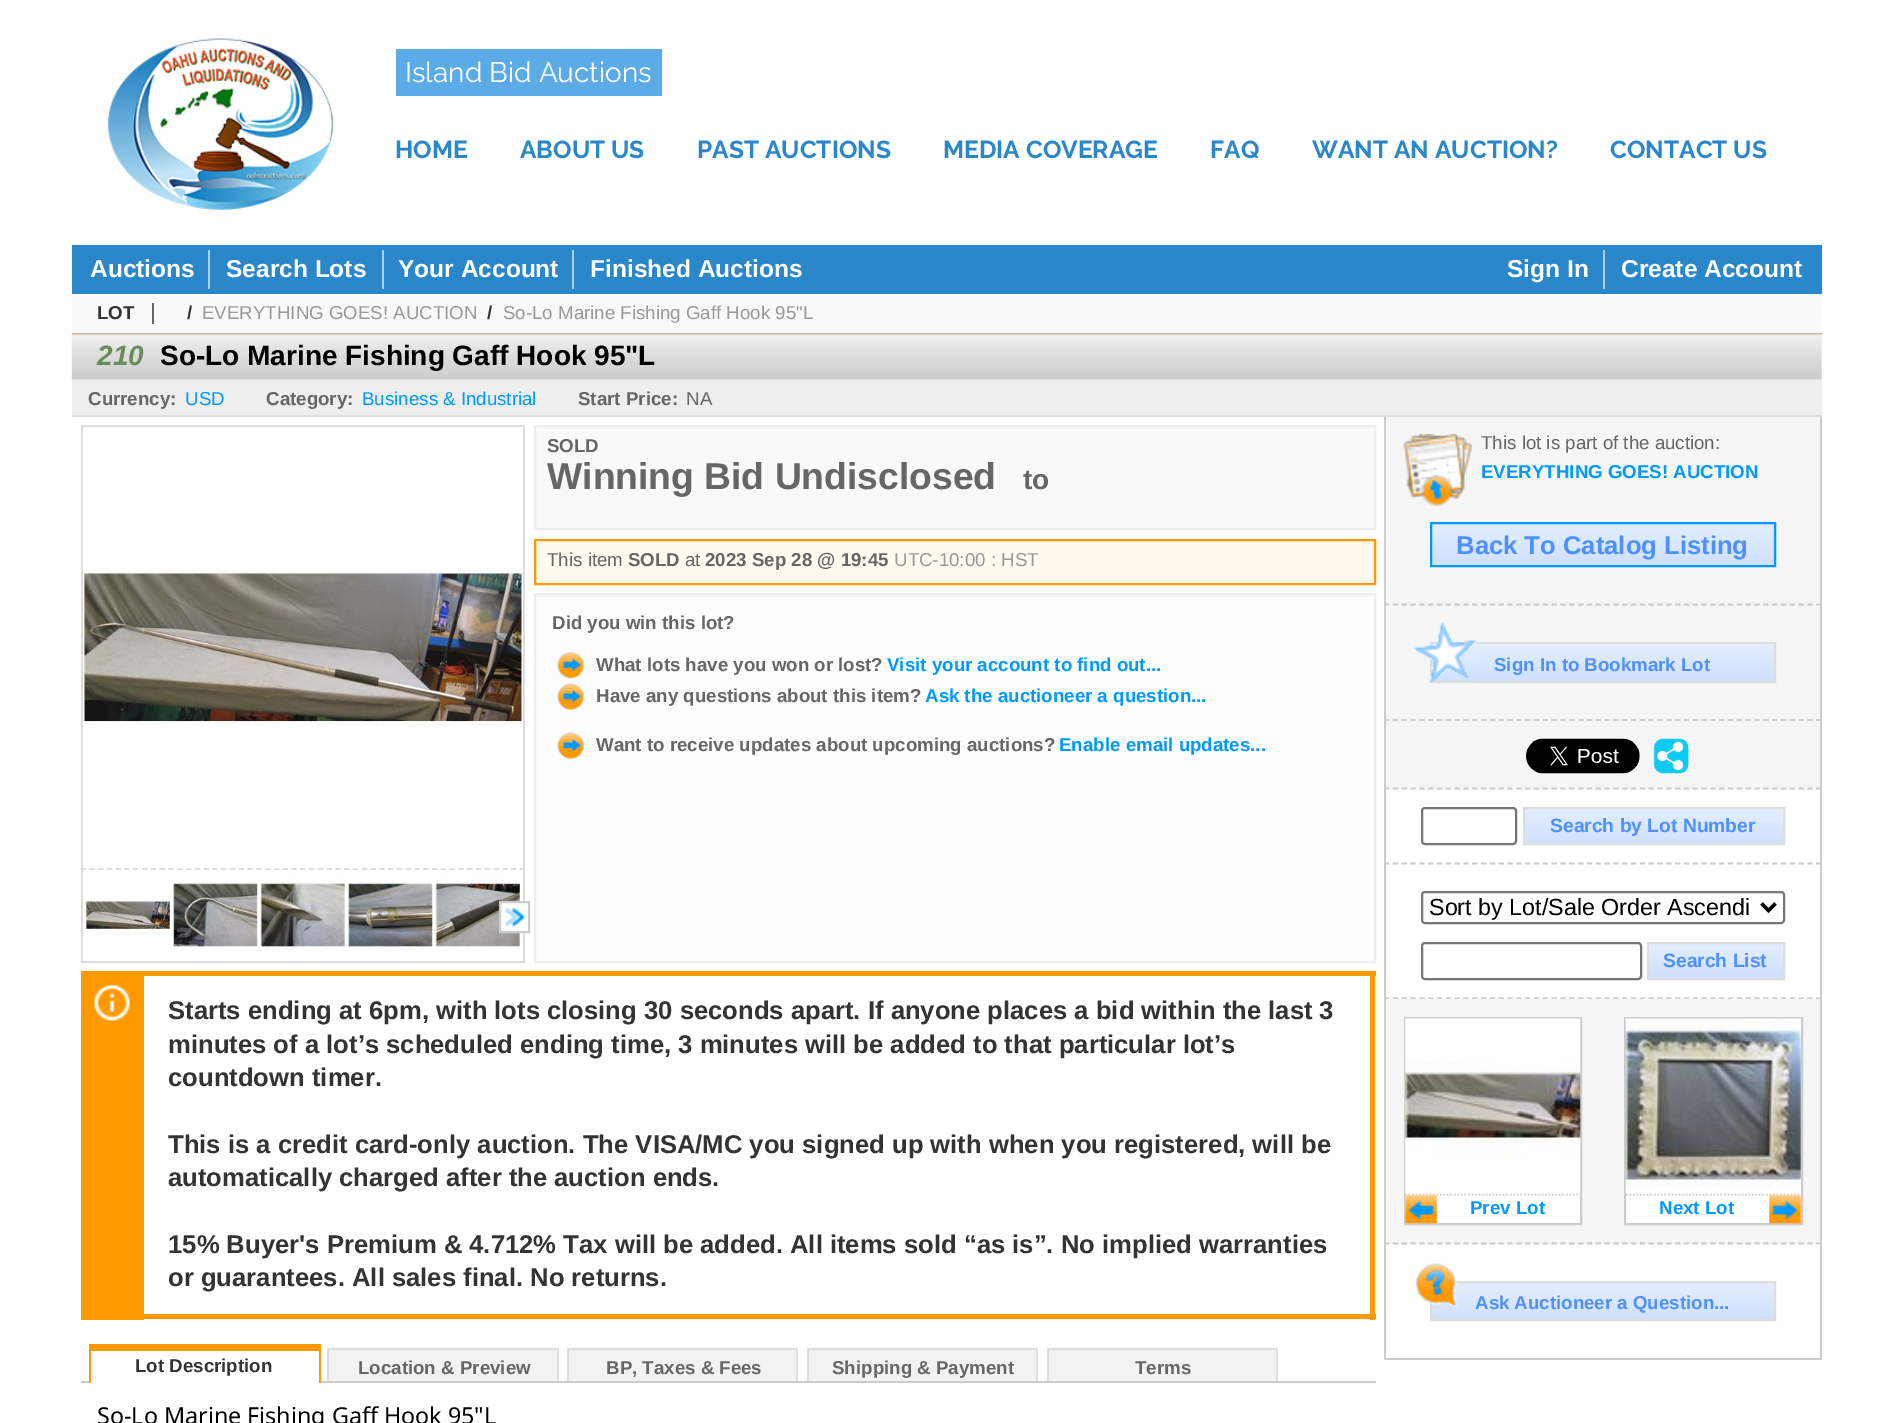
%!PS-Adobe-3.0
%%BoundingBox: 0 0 1891 1423
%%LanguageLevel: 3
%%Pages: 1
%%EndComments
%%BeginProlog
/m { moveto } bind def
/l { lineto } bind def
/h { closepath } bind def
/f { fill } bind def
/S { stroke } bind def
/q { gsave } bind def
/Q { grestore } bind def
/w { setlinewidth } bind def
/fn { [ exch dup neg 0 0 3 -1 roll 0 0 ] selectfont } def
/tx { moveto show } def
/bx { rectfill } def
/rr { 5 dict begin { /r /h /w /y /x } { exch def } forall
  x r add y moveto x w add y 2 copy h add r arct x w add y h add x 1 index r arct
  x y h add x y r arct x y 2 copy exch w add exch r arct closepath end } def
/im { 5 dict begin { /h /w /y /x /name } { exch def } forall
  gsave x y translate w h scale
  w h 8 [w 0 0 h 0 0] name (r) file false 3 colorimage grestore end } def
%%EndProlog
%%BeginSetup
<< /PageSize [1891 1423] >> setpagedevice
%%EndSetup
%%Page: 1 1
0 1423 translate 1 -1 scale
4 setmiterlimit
1 setgray
0 0 1891 1423 bx
(image0.raw) 107 38 227 172 im
0.353 0.671 0.902 setrgbcolor
396 49 266 47 bx
/Raleway-Regular 28 fn
1 setgray
(Island Bid Auctions) 405 82 tx
/Raleway-Bold 24.5 fn
0.165 0.529 0.792 setrgbcolor
(HOME) 395 158 tx
(ABOUT US) 520 158 tx
(PAST AUCTIONS) 697 158 tx
(MEDIA COVERAGE) 943 158 tx
(FAQ) 1210 158 tx
(WANT AN AUCTION?) 1312 158 tx
(CONTACT US) 1610 158 tx
72 245 1750 49 bx
/LiberationSans-Bold 24.5 fn
1 setgray
(Auctions) 90 277 tx
0.667 0.824 0.933 setrgbcolor
208 250 2 39 bx
1 setgray
(Search Lots) 226 277 tx
0.667 0.824 0.933 setrgbcolor
382 250 2 39 bx
1 setgray
(Your Account) 398 277 tx
0.667 0.824 0.933 setrgbcolor
572 250 2 39 bx
1 setgray
(Finished Auctions) 590 277 tx
(Sign In) 1507 277 tx
0.667 0.824 0.933 setrgbcolor
1603 250 2 39 bx
1 setgray
(Create Account) 1621 277 tx
0.976 setgray
72 294 1750 39 bx
0.733 setgray
72 333 1750 2 bx
/LiberationSans-Bold 18.7 fn
0.2 setgray
(LOT) 97 319 tx
0.4 setgray
152 303 2 21 bx
0.2 setgray
(/) 187 319 tx
/LiberationSans-Regular 18.7 fn
0.6 setgray
(EVERYTHING GOES! AUCTION) 202 319 tx
/LiberationSans-Bold 18.7 fn
0.2 setgray
(/) 487 319 tx
/LiberationSans-Regular 18.7 fn
0.6 setgray
(So-Lo Marine Fishing Gaff Hook 95"L) 503 319 tx
(image1.raw) 71 334 1751 46 im
/LiberationSans-BoldItalic 28 fn
0.412 0.549 0.357 setrgbcolor
(210) 97 365 tx
/LiberationSans-Bold 28 fn
0 setgray
(So-Lo Marine Fishing Gaff Hook 95"L) 160 365 tx
0.933 setgray
72 380 1750 35 bx
0.867 setgray
72 415 1750 2 bx
/LiberationSans-Bold 18.7 fn
0.4 setgray
(Currency:) 88 405 tx
/LiberationSans-Regular 18.7 fn
0 0.6 1 setrgbcolor
(USD) 185 405 tx
/LiberationSans-Bold 18.7 fn
0.4 setgray
(Category:) 266 405 tx
/LiberationSans-Regular 18.7 fn
0 0.6 1 setrgbcolor
(Business & Industrial) 362 405 tx
/LiberationSans-Bold 18.7 fn
0.4 setgray
(Start Price:) 578 405 tx
/LiberationSans-Regular 18.7 fn
(NA) 686 405 tx
0.867 setgray
81 425 444 2 bx
523 425 2 443 bx
81 425 2 443 bx
(image2.raw) 84 569 438 157 im
1.8 w
[5.25 3.54] 0 setdash
80.5 869 m 525 869 l S
523 868 2 95 bx
81 961 444 2 bx
81 868 2 95 bx
(image3.raw) 85 900 85 34 im
(image4.raw) 173 882 85 65 im
(image5.raw) 260 874 85 73 im
(image6.raw) 348 880 85 69 im
(image7.raw) 435 876 85 71 im
(image8.raw) 501 903 25 28 im
0.8 setgray
2 w
[] 0 setdash
500 902 29 30 rectstroke
0.976 setgray
535 426 m 1375 426 l 1375 529 l 535 529 l h q f Q
0.933 setgray
S
/LiberationSans-Bold 18.7 fn
0.4 setgray
(SOLD) 547 452 tx
/LiberationSans-Bold 37.25 fn
(Winning Bid Undisclosed) 547 489 tx
/LiberationSans-Bold 28 fn
(to) 1023 489 tx
1 0.976 0.941 setrgbcolor
535 540 m 1375 540 l 1375 584 l 535 584 l h q f Q
1 0.6 0 setrgbcolor
S
/LiberationSans-Regular 18.7 fn
0.4 setgray
(This item) 547 566 tx
/LiberationSans-Bold 18.7 fn
(SOLD) 628 566 tx
/LiberationSans-Regular 18.7 fn
(at) 685 566 tx
/LiberationSans-Bold 18.7 fn
(2023 Sep 28 @ 19:45) 705 566 tx
/LiberationSans-Regular 18.7 fn
0.6 setgray
(UTC-10:00 : HST) 894 566 tx
0.988 setgray
535 594 m 1375 594 l 1375 962 l 535 962 l h q f Q
0.933 setgray
S
/LiberationSans-Bold 18.7 fn
0.4 setgray
(Did you win this lot?) 552 629 tx
(image9.raw) 557 652 28 27 im
(What lots have you won or lost?) 596 671 tx
0 0.6 1 setrgbcolor
(Visit your account to find out...) 887 671 tx
(image10.raw) 557 683 28 28 im
0.4 setgray
(Have any questions about this item?) 596 702 tx
0 0.6 1 setrgbcolor
(Ask the auctioneer a question...) 925 702 tx
(image10.raw) 557 732 28 28 im
0.4 setgray
(Want to receive updates about upcoming auctions?) 596 751 tx
0 0.6 1 setrgbcolor
(Enable email updates...) 1059 751 tx
1 0.6 0 setrgbcolor
144 971 1232 5 bx
1370 971 5 349 bx
144 1314 1232 5 bx
81 971 63 349 bx
(image11.raw) 94 984 36 37 im
/LiberationSans-Bold 25.65 fn
0.2 setgray
(Starts ending at 6pm, with lots closing 30 seconds apart. If anyone places a bid within the last 3) 168 1019 tx
(minutes of a lot’s scheduled ending time, 3 minutes will be added to that particular lot’s) 168 1053 tx
(countdown timer.) 168 1086 tx
(This is a credit card-only auction. The VISA/MC you signed up with when you registered, will be) 168 1153 tx
(automatically charged after the auction ends.) 168 1186 tx
(15% Buyer's Premium & 4.712% Tax will be added. All items sold “as is”. No implied warranties) 168 1253 tx
(or guarantees. All sales final. No returns.) 168 1286 tx
0.8 setgray
81 1381 1295 2 bx
1 setgray
91 1381 228 2 bx
1 0.6 0 setrgbcolor
89 1344 231 7 bx
319 1344 2 39 bx
89 1344 2 39 bx
/LiberationSans-Bold 18.7 fn
0.2 setgray
(Lot Description) 135 1372 tx
0.949 setgray
329 1350 228 31 bx
0.867 setgray
327 1348 231 2 bx
557 1348 2 33 bx
327 1348 2 33 bx
0.4 setgray
(Location & Preview) 358 1374 tx
0.949 setgray
569 1350 227 31 bx
0.867 setgray
567 1348 231 2 bx
796 1348 2 33 bx
567 1348 2 33 bx
0.4 setgray
(BP, Taxes & Fees) 606 1374 tx
0.949 setgray
809 1350 227 31 bx
0.867 setgray
807 1348 231 2 bx
1036 1348 2 33 bx
807 1348 2 33 bx
0.4 setgray
(Shipping & Payment) 832 1374 tx
0.949 setgray
1049 1350 227 31 bx
0.867 setgray
1047 1348 231 2 bx
1276 1348 2 33 bx
1047 1348 2 33 bx
0.4 setgray
(Terms) 1135 1374 tx
/NotoSans-Regular 23.3 fn
0 setgray
(So-Lo Marine Fishing Gaff Hook 95"L) 97 1424 tx
0.965 setgray
1386 417 434 372 bx
0.8 setgray
1820 417 2 372 bx
1.8 w
[5.25 3.57] 0 setdash
1384 604.5 m 1822 604.5 l S
1384 417 2 189 bx
(image12.raw) 1403 434 70 73 im
/LiberationSans-Regular 18.7 fn
0.4 setgray
(This lot is part of the auction:) 1481 449 tx
/LiberationSans-Bold 18.7 fn
0 0.6 1 setrgbcolor
(EVERYTHING GOES! AUCTION) 1481 478 tx
q 1432 524 m 1774 524 l 1774 565 l 1432 565 l h clip newpath
<< /ShadingType 2 /ColorSpace /DeviceRGB /Coords [1603 523 1603 565] /Extend [true true] /Function << /FunctionType 2 /Domain [0 1] /C0 [0.894 0.933 1] /C1 [0.812 0.882 1] /N 1 >> >> shfill Q
2 w
[] 0 setdash
1431 523 344 43 rectstroke
/LiberationSans-Bold 25.65 fn
0.302 0.565 0.996 setrgbcolor
(Back To Catalog Listing) 1456 554 tx
0.8 setgray
1.8 w
[5.25 3.57] 0 setdash
1384 720 m 1822 720 l S
1384 606 2 115 bx
q 1432 644 m 1774 644 l 1774 681 l 1432 681 l h clip newpath
<< /ShadingType 2 /ColorSpace /DeviceRGB /Coords [1603 644 1603 681] /Extend [true true] /Function << /FunctionType 2 /Domain [0 1] /C0 [0.894 0.933 1] /C1 [0.812 0.882 1] /N 1 >> >> shfill Q
0.867 setgray
2 w
[] 0 setdash
1431 643 344 39 rectstroke
(image13.raw) 1413 621 63 63 im
/LiberationSans-Bold 18.7 fn
0.302 0.565 0.996 setrgbcolor
(Sign In to Bookmark Lot) 1494 671 tx
0.8 setgray
1.8 w
[5.25 3.57] 0 setdash
1384 788.5 m 1822 788.5 l S
1384 721 2 68 bx
(image14.raw) 1526 738 114 36 im
(image15.raw) 1653 738 36 36 im
1820 789 2 210 bx
1384 863.5 m 1822 863.5 l S
1384 789 2 76 bx
0.463 setgray
2 w
[] 0 setdash
1422 808 94 36 3 rr S
q 1525 809 m 1783 809 l 1783 843 l 1525 843 l h clip newpath
<< /ShadingType 2 /ColorSpace /DeviceRGB /Coords [1654 809 1654 844] /Extend [true true] /Function << /FunctionType 2 /Domain [0 1] /C0 [0.894 0.933 1] /C1 [0.812 0.882 1] /N 1 >> >> shfill Q
0.867 setgray
1524 808 260 36 rectstroke
/LiberationSans-Bold 19.25 fn
0.302 0.565 0.996 setrgbcolor
(Search by Lot Number) 1550 832 tx
0.8 setgray
1.8 w
[5.25 3.57] 0 setdash
1384 998.5 m 1822 998.5 l S
1384 865 2 134 bx
0.463 setgray
2 w
[] 0 setdash
1422 892 362 31 3 rr S
0 setgray
3.5 w
1761.5 903.5 m 1768.5 910.5 l 1775.5 903.5 l S
/LiberationSans-Regular 23.3 fn
(Sort by Lot/Sale Order Ascendi) 1429 915 tx
0.463 setgray
2 w
1422 943 219 36 3 rr S
q 1649 944 m 1783 944 l 1783 978 l 1649 978 l h clip newpath
<< /ShadingType 2 /ColorSpace /DeviceRGB /Coords [1716 943 1716 978] /Extend [true true] /Function << /FunctionType 2 /Domain [0 1] /C0 [0.894 0.933 1] /C1 [0.812 0.882 1] /N 1 >> >> shfill Q
0.867 setgray
1648 943 136 36 rectstroke
/LiberationSans-Bold 19.25 fn
0.302 0.565 0.996 setrgbcolor
(Search List) 1663 967 tx
0.965 setgray
1386 999 434 245 bx
0.8 setgray
1820 999 2 245 bx
1.8 w
[5.25 3.57] 0 setdash
1384 1243.5 m 1822 1243.5 l S
1384 999 2 245 bx
2 w
[] 0 setdash
1405 1018 176 206 rectstroke
1 setgray
1405 1194 175 29 bx
0.8 setgray
1.8 w
[1.75 1.75] 0 setdash
1405 1194.5 m 1580 1194.5 l S
(image16.raw) 1405 1018 176 176 im
(image17.raw) 1405 1195 32 29 im
/LiberationSans-Bold 18.7 fn
0 0.6 1 setrgbcolor
(Prev Lot) 1470 1214 tx
0.8 setgray
2 w
[] 0 setdash
1625 1018 177 206 rectstroke
1 setgray
1626 1194 175 29 bx
0.8 setgray
1.8 w
[1.75 1.75] 0 setdash
1626 1194.5 m 1801 1194.5 l S
(image18.raw) 1625 1018 176 176 im
0 0.6 1 setrgbcolor
(Next Lot) 1659 1214 tx
(image19.raw) 1769 1195 32 29 im
0.8 setgray
1820 1244 2 116 bx
1384 1358 438 2 bx
1384 1244 2 116 bx
q 1432 1283 m 1774 1283 l 1774 1319 l 1432 1319 l h clip newpath
<< /ShadingType 2 /ColorSpace /DeviceRGB /Coords [1603 1283 1603 1320] /Extend [true true] /Function << /FunctionType 2 /Domain [0 1] /C0 [0.894 0.933 1] /C1 [0.812 0.882 1] /N 1 >> >> shfill Q
0.867 setgray
2 w
[] 0 setdash
1431 1282 344 38 rectstroke
(image20.raw) 1415 1263 43 44 im
0.302 0.565 0.996 setrgbcolor
(Ask Auctioneer a Question...) 1475 1309 tx
showpage
%%EOF
